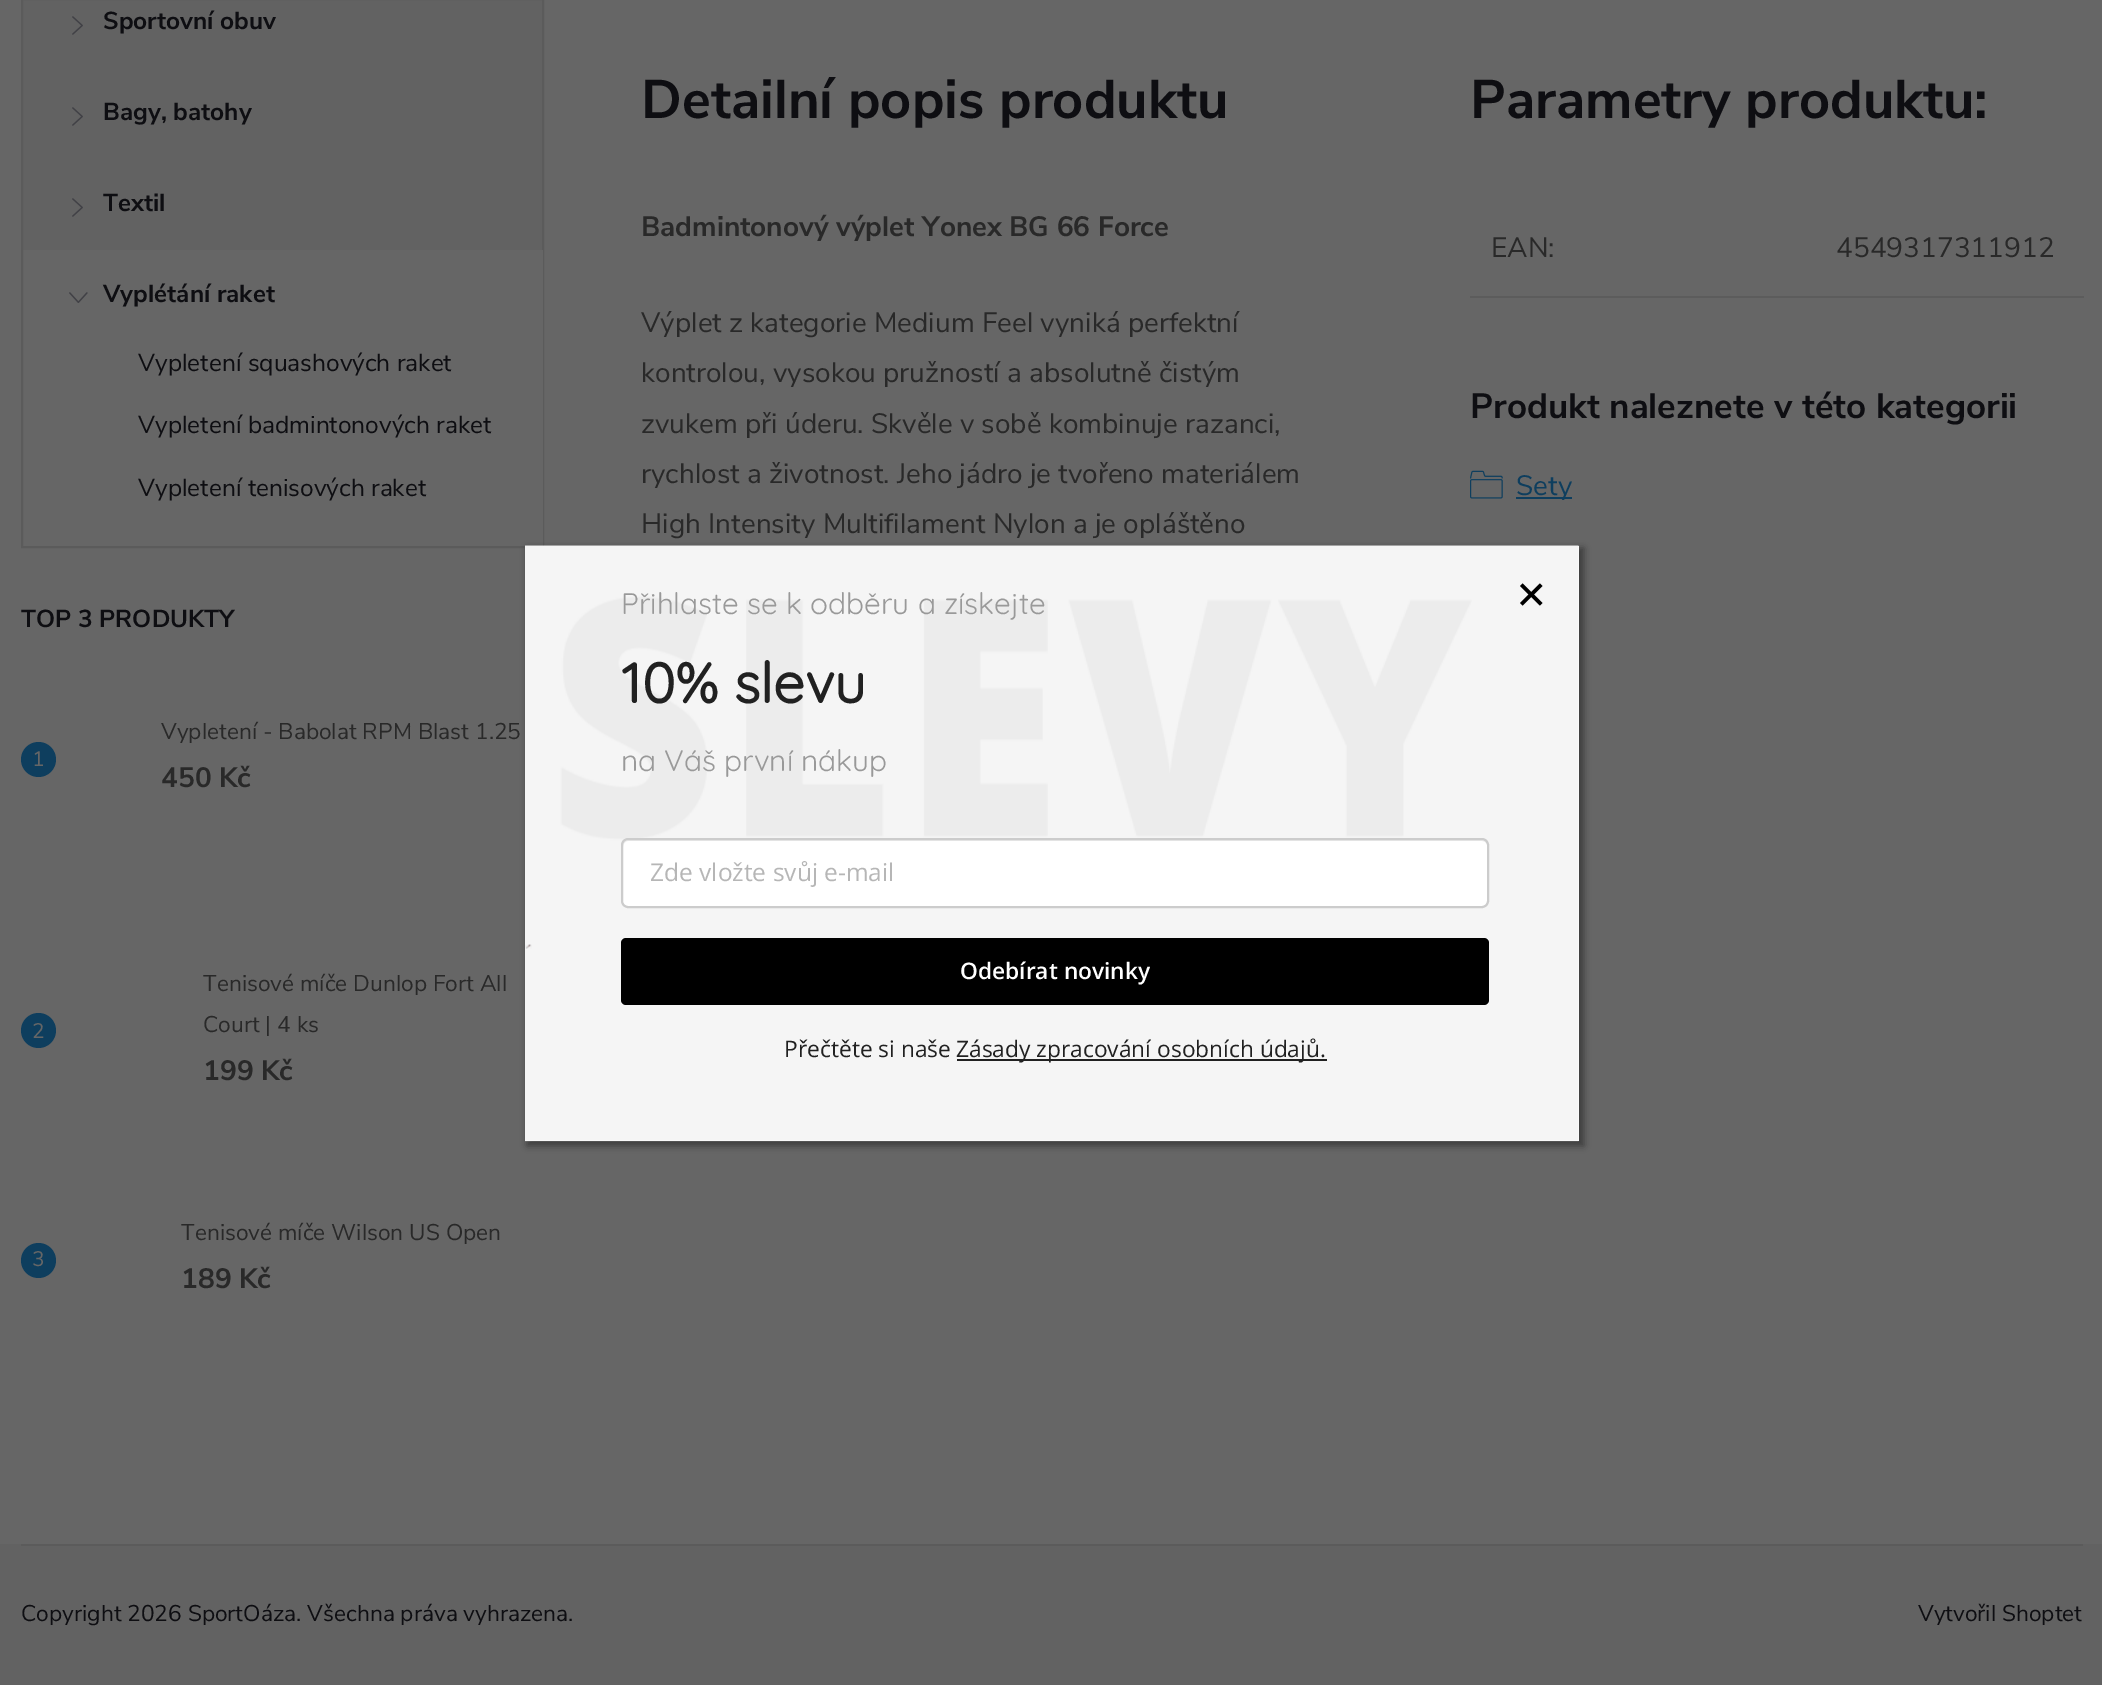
%!PS-Adobe-3.0
%%BoundingBox: 0 0 2102 1685
%%LanguageLevel: 3
%%Pages: 1
%%EndComments
%%BeginProlog
/m { moveto } bind def
/l { lineto } bind def
/c { curveto } bind def
/h { closepath } bind def
/f { fill } bind def
/S { stroke } bind def
/w { setlinewidth } bind def
/fn { [ exch dup neg 0 0 3 -1 roll 0 0 ] selectfont } def
/tx { moveto show } def
/bx { rectfill } def
/al { dup .setfillconstantalpha .setstrokeconstantalpha } def
/ci { newpath 0 360 arc closepath } def
/rr { 5 dict begin { /r /h /w /y /x } { exch def } forall
  x r add y moveto x w add y 2 copy h add r arct x w add y h add x 1 index r arct
  x y h add x y r arct x y 2 copy exch w add exch r arct closepath end } def
/sh { 12 dict begin { /a /b /q /h /w /y /x } { exch def } forall gsave /was 0 def
  9 -2 -9 { dup b mul 4 div /e exch def 1 sub .425 mul 2.718 exch exp 1 add a .99 .min exch div /now exch def
    1 1 now sub 1 was sub div sub al /was now def
    w h .min e 2 mul add 0 gt { x e sub y e sub w e 2 mul add h e 2 mul add
      q e add b .6 mul add w h .min 2 div e add .min 0 .max rr fill } if } for grestore end } def
/im { 5 dict begin { /h /w /y /x /name } { exch def } forall
  gsave x y translate w h scale
  w h 8 [w 0 0 h 0 0] name (r) file false 3 colorimage grestore end } def
%%EndProlog
%%BeginSetup
<< /PageSize [2102 1685] /PageUsesTransparency true >> setpagedevice
%%EndSetup
%%Page: 1 1
0 .pushpdf14devicefilter
0 1685 translate 1 -1 scale
4 setmiterlimit
0.4 setgray
0 0 2102 1685 bx
0.384 setgray
23 0 519 250 bx
0.357 setgray
2 w
22 -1 521 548 rectstroke
(image0.raw) 72 16 11 19 im
/NunitoSans-Bold 24.5 fn
0.055 0.055 0.071 setrgbcolor
(Sportovní obuv) 103 29 tx
(image0.raw) 72 107 11 19 im
(Bagy, batohy) 103 120 tx
(image0.raw) 72 198 11 19 im
(Textil) 103 211 tx
0.4 setgray
542 250 1 296 bx
(image1.raw) 69 292 19 11 im
0.055 0.055 0.071 setrgbcolor
(Vyplétání raket) 103 302 tx
/NunitoSans-Regular 24.5 fn
(Vypletení squashových raket) 138 371 tx
(Vypletení badmintonových raket) 138 433 tx
(Vypletení tenisových raket) 138 496 tx
/NunitoSans-Bold 24.5 fn
(TOP 3 PRODUKTY) 21 627 tx
0.055 0.243 0.369 setrgbcolor
38.5 759.5 17.5 ci f
/NunitoSans-Regular 21 fn
0.4 setgray
(1) 32 766 tx
/NunitoSans-Regular 22.75 fn
0.161 setgray
(Vypletení - Babolat RPM Blast 1.25) 161 739 tx
/NunitoSans-Bold 28 fn
(450 Kč) 161 787 tx
0.055 0.243 0.369 setrgbcolor
38.5 1030.5 17.5 ci f
/NunitoSans-Regular 21 fn
0.4 setgray
(2) 32 1038 tx
/NunitoSans-Regular 22.75 fn
0.161 setgray
(Tenisové míče Dunlop Fort All) 203 991 tx
(Court | 4 ks) 203 1032 tx
/NunitoSans-Bold 28 fn
(199 Kč) 203 1080 tx
0.055 0.243 0.369 setrgbcolor
38.5 1260.5 17.5 ci f
/NunitoSans-Regular 21 fn
0.4 setgray
(3) 32 1266 tx
/NunitoSans-Regular 22.75 fn
0.161 setgray
(Tenisové míče Wilson US Open) 181 1240 tx
/NunitoSans-Bold 28 fn
(189 Kč) 181 1288 tx
/NunitoSans-Bold 54.25 fn
0.055 0.055 0.071 setrgbcolor
(Detailní popis produktu) 641 118 tx
/NunitoSans-Bold 28 fn
0.161 setgray
(Badmintonový výplet Yonex BG 66 Force) 641 236 tx
/NunitoSans-Regular 28 fn
(Výplet z kategorie Medium Feel vyniká perfektní) 641 332 tx
(kontrolou, vysokou pružností a absolutně čistým) 641 382 tx
(zvukem při úderu. Skvěle v sobě kombinuje razanci,) 641 433 tx
(rychlost a životnost. Jeho jádro je tvořeno materiálem) 641 483 tx
(High Intensity Multifilament Nylon a je opláštěno) 641 533 tx
/NunitoSans-Bold 54.25 fn
0.055 0.055 0.071 setrgbcolor
(Parametry produktu:) 1470 118 tx
/NunitoSans-Regular 28 fn
0.161 setgray
(EAN:) 1491 257 tx
0.361 setgray
1470 296 614 2 bx
0.161 setgray
(4549317311912) 1836 257 tx
/NunitoSans-Bold 35 fn
0.055 0.055 0.071 setrgbcolor
(Produkt naleznete v této kategorii) 1470 418 tx
(image2.raw) 1470 470 33 29 im
0.055 0.243 0.369 setrgbcolor
1516 497 56 2 bx
/NunitoSans-Regular 28 fn
(Sety) 1516 495 tx
0.384 setgray
0 1544 2102 141 bx
0.357 setgray
21 1544 2062 2 bx
/NunitoSans-Regular 22.75 fn
0.055 0.055 0.071 setrgbcolor
(Copyright 2026 SportOáza. Všechna práva vyhrazena.) 21 1621 tx
(Vytvořil Shoptet) 1918 1621 tx
0 setgray
527 548 1057 598 0 3.5 0.41 sh
1 setgray
525 546 1054 595 bx
(image3.raw) 525 545 1054 597 im
(image4.raw) 525 944 7 5 im
/Quicksand-Light 29.75 fn
0.6 setgray
(Přihlaste se k odběru a získejte) 621 614 tx
/Quicksand-Bold 56 fn
0.129 setgray
(10% slevu) 621 703 tx
/Quicksand-Light 29.75 fn
0.6 setgray
(na Váš první nákup) 621 771 tx
1 setgray
621 838 868 70 7 rr f
0.925 setgray
628 841 m 1482 841 l 1485 841 1488 844 1488 847 c 1488 845 l 1488 842 1486 840 1483 840 c 628 840 l 625 840 623 842 623 845 c 623 847 l 623 844 625 841 628 841 c h f
0.8 setgray
622 839 866 68 6 rr S
/OpenSans-Regular 24.5 fn
0.714 setgray
(Zde vložte svůj e-mail) 650 881 tx
0 setgray
621 938 868 67 5 rr f
/OpenSans-SemiBold 22.75 fn
1 setgray
(Odebírat novinky) 960 979 tx
/OpenSans-Regular 22.75 fn
0.129 setgray
(Přečtěte si naše) 784 1057 tx
957 1059 370 2 bx
(Zásady zpracování osobních údajů.) 956 1057 tx
0 setgray
1540 583.5 m 1542.5 586 l 1522.5 605.5 l 1520 603 l h f
1520 586 m 1522.5 583.5 l 1542.5 603 l 1540 605.5 l h f
.poppdf14devicefilter showpage
%%EOF
